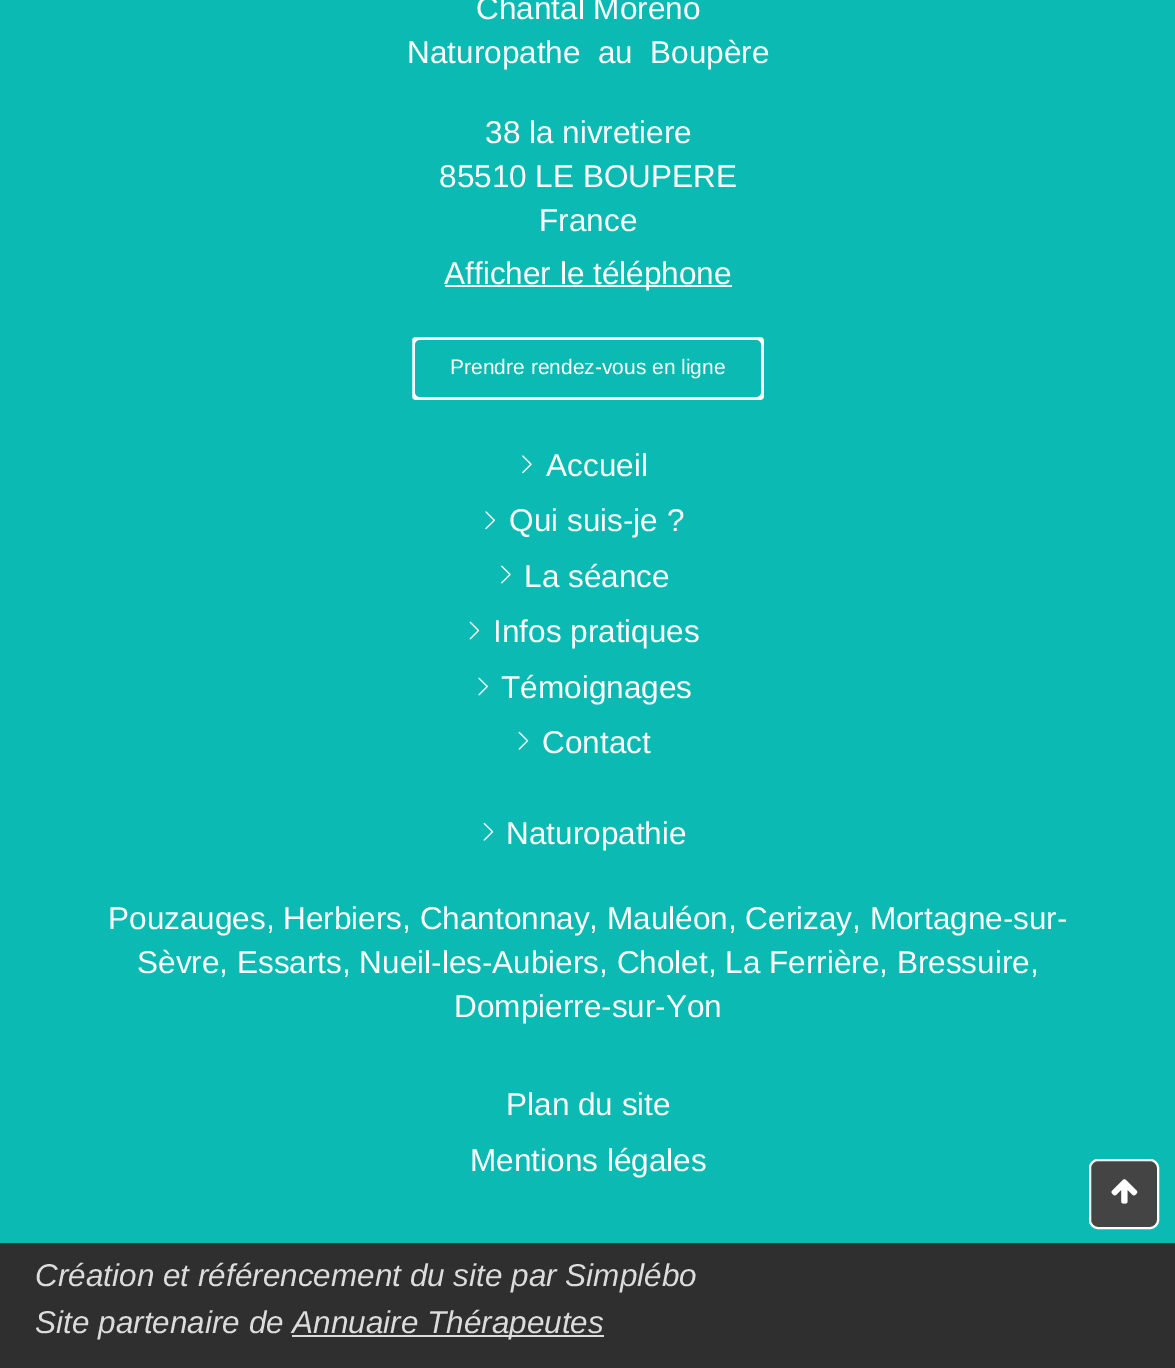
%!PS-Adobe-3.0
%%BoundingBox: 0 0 1175 1368
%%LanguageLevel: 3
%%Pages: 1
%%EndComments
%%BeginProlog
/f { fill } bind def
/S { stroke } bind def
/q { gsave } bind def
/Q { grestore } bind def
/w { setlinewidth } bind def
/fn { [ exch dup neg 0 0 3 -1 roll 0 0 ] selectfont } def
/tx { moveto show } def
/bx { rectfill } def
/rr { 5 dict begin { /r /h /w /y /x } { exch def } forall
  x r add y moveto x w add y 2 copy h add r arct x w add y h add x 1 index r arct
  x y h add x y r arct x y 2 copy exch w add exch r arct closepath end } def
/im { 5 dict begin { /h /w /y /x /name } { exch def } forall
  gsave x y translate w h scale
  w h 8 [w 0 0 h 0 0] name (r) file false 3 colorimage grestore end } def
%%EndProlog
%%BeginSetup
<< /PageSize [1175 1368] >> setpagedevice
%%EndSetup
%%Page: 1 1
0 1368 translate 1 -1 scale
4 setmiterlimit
0.184 setgray
0 0 1175 1368 bx
0.047 0.729 0.706 setrgbcolor
0 0 1175 1243 bx
/LiberationSans-Regular 31.5 fn
1 setgray
(Chantal Moreno) 476 19 tx
(Naturopathe  au  Boupère) 407 63 tx
(38 la nivretiere) 485 143 tx
(85510 LE BOUPERE) 439 187 tx
(France) 539 231 tx
445 285 287 2 bx
(Afficher le téléphone) 444 284 tx
410 335 356 67 5 rr q f Q
0.047 0.729 0.706 setrgbcolor
4 w
S
415 340 346 57 5 rr f
/LiberationSans-Regular 21 fn
1 setgray
(Prendre rendez-vous en ligne) 450 374 tx
(image0.raw) 522 455 10 19 im
/LiberationSans-Regular 31.5 fn
(Accueil) 546 476 tx
(image1.raw) 485 511 10 19 im
(Qui suis-je ?) 509 531 tx
(image2.raw) 501 565 10 19 im
(La séance) 524 587 tx
(image3.raw) 469 621 11 19 im
(Infos pratiques) 493 642 tx
(image4.raw) 478 677 10 19 im
(Témoignages) 501 698 tx
(image5.raw) 518 731 11 19 im
(Contact) 542 753 tx
(image5.raw) 483 822 11 19 im
(Naturopathie) 506 844 tx
(Pouzauges, Herbiers, Chantonnay, Mauléon, Cerizay, Mortagne-sur-) 108 929 tx
(Sèvre, Essarts, Nueil-les-Aubiers, Cholet, La Ferrière, Bressuire,) 137 973 tx
(Dompierre-sur-Yon) 454 1017 tx
(Plan du site) 506 1115 tx
(Mentions légales) 470 1171 tx
/LiberationSans-Italic 31.5 fn
0.863 setgray
(Création et référencement du site par Simplébo) 35 1286 tx
(Site partenaire de) 35 1333 tx
292 1335 312 2 bx
(Annuaire Thérapeutes) 292 1333 tx
0.267 setgray
1090 1160 68 68 8 rr q f Q
1 setgray
2 w
S
(image6.raw) 1111 1179 27 25 im
showpage
%%EOF
